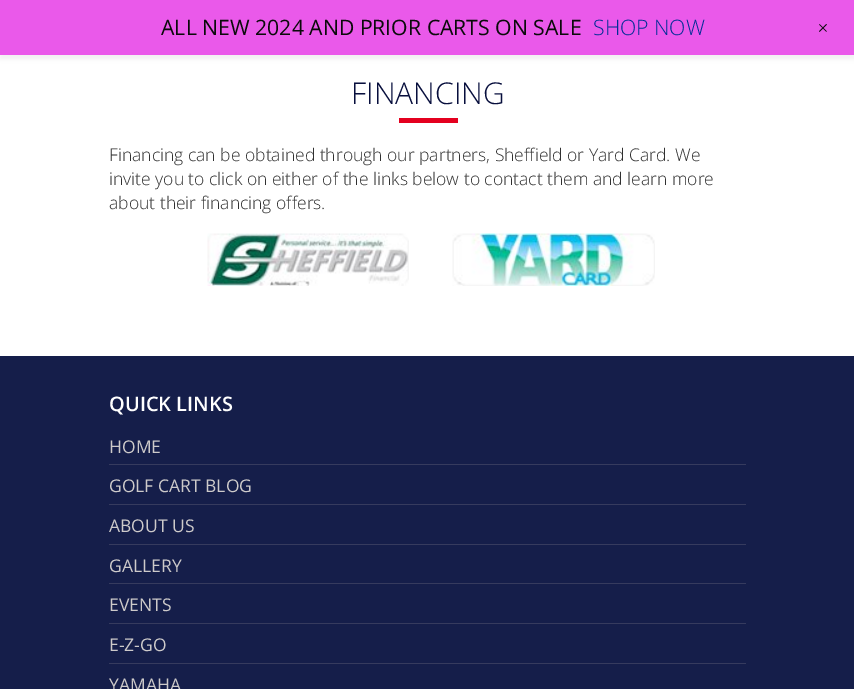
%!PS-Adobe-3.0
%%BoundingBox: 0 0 854 689
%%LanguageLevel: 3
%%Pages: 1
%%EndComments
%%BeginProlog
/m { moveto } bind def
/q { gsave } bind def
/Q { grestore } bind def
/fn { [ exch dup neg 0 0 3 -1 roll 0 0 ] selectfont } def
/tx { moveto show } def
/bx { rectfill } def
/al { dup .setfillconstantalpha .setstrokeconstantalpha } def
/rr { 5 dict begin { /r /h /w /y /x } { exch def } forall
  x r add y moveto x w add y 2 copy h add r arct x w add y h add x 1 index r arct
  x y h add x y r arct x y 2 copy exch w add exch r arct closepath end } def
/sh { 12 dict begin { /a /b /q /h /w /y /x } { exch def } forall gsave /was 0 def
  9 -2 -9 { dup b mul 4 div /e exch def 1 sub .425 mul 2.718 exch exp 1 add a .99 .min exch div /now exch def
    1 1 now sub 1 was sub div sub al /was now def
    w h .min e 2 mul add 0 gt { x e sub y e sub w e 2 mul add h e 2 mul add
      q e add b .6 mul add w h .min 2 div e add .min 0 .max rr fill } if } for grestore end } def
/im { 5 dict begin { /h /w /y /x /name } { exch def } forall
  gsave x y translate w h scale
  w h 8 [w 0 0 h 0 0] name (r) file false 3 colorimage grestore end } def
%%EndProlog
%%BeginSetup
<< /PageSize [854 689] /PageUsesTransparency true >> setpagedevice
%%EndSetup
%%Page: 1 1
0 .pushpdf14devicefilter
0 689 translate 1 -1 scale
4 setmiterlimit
1 setgray
0 0 854 689 bx
0 setgray
0 4 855 55 0 2.5 0.05 sh
0.918 0.349 0.918 setrgbcolor
0 0 854 55 bx
/OpenSans-Regular 21.25 fn
0.039 setgray
(ALL NEW 2024 AND PRIOR CARTS ON SALE) 161 35 tx
/OpenSans-Light 21.25 fn
0 0.176 0.588 setrgbcolor
(SHOP NOW) 593 35 tx
/OpenSans-Light 22 fn
0.039 setgray
q 813 29 translate 45 rotate 0 0 m (+) show Q
/OpenSans-Light 30 fn
0.031 0.059 0.239 setrgbcolor
(FINANCING) 351 104 tx
0.894 0 0.122 setrgbcolor
399 118 59 5 bx
/OpenSans-Light 17.5 fn
0.188 setgray
(Financing can be obtained through our partners, Sheffield or Yard Card. We) 109 161 tx
(invite you to click on either of the links below to contact them and learn more) 109 185 tx
(about their financing offers.) 109 209 tx
(image0.raw) 207 233 202 53 im
(image1.raw) 452 233 203 53 im
0.082 0.118 0.29 setrgbcolor
0 356 854 333 bx
/OpenSans-SemiBold 20 fn
1 setgray
(QUICK LINKS) 109 411 tx
0.212 0.231 0.369 setrgbcolor
109 464 637 1 bx
/OpenSans-Regular 17.5 fn
0.804 0.792 0.792 setrgbcolor
(HOME) 109 453 tx
0.212 0.231 0.369 setrgbcolor
109 504 637 1 bx
0.804 0.792 0.792 setrgbcolor
(GOLF CART BLOG) 109 492 tx
0.212 0.231 0.369 setrgbcolor
109 544 637 1 bx
0.804 0.792 0.792 setrgbcolor
(ABOUT US) 109 532 tx
0.212 0.231 0.369 setrgbcolor
109 583 637 1 bx
0.804 0.792 0.792 setrgbcolor
(GALLERY) 109 572 tx
0.212 0.231 0.369 setrgbcolor
109 623 637 1 bx
0.804 0.792 0.792 setrgbcolor
(EVENTS) 109 611 tx
0.212 0.231 0.369 setrgbcolor
109 663 637 1 bx
0.804 0.792 0.792 setrgbcolor
(E-Z-GO) 109 651 tx
(YAMAHA) 109 691 tx
.poppdf14devicefilter showpage
%%EOF
